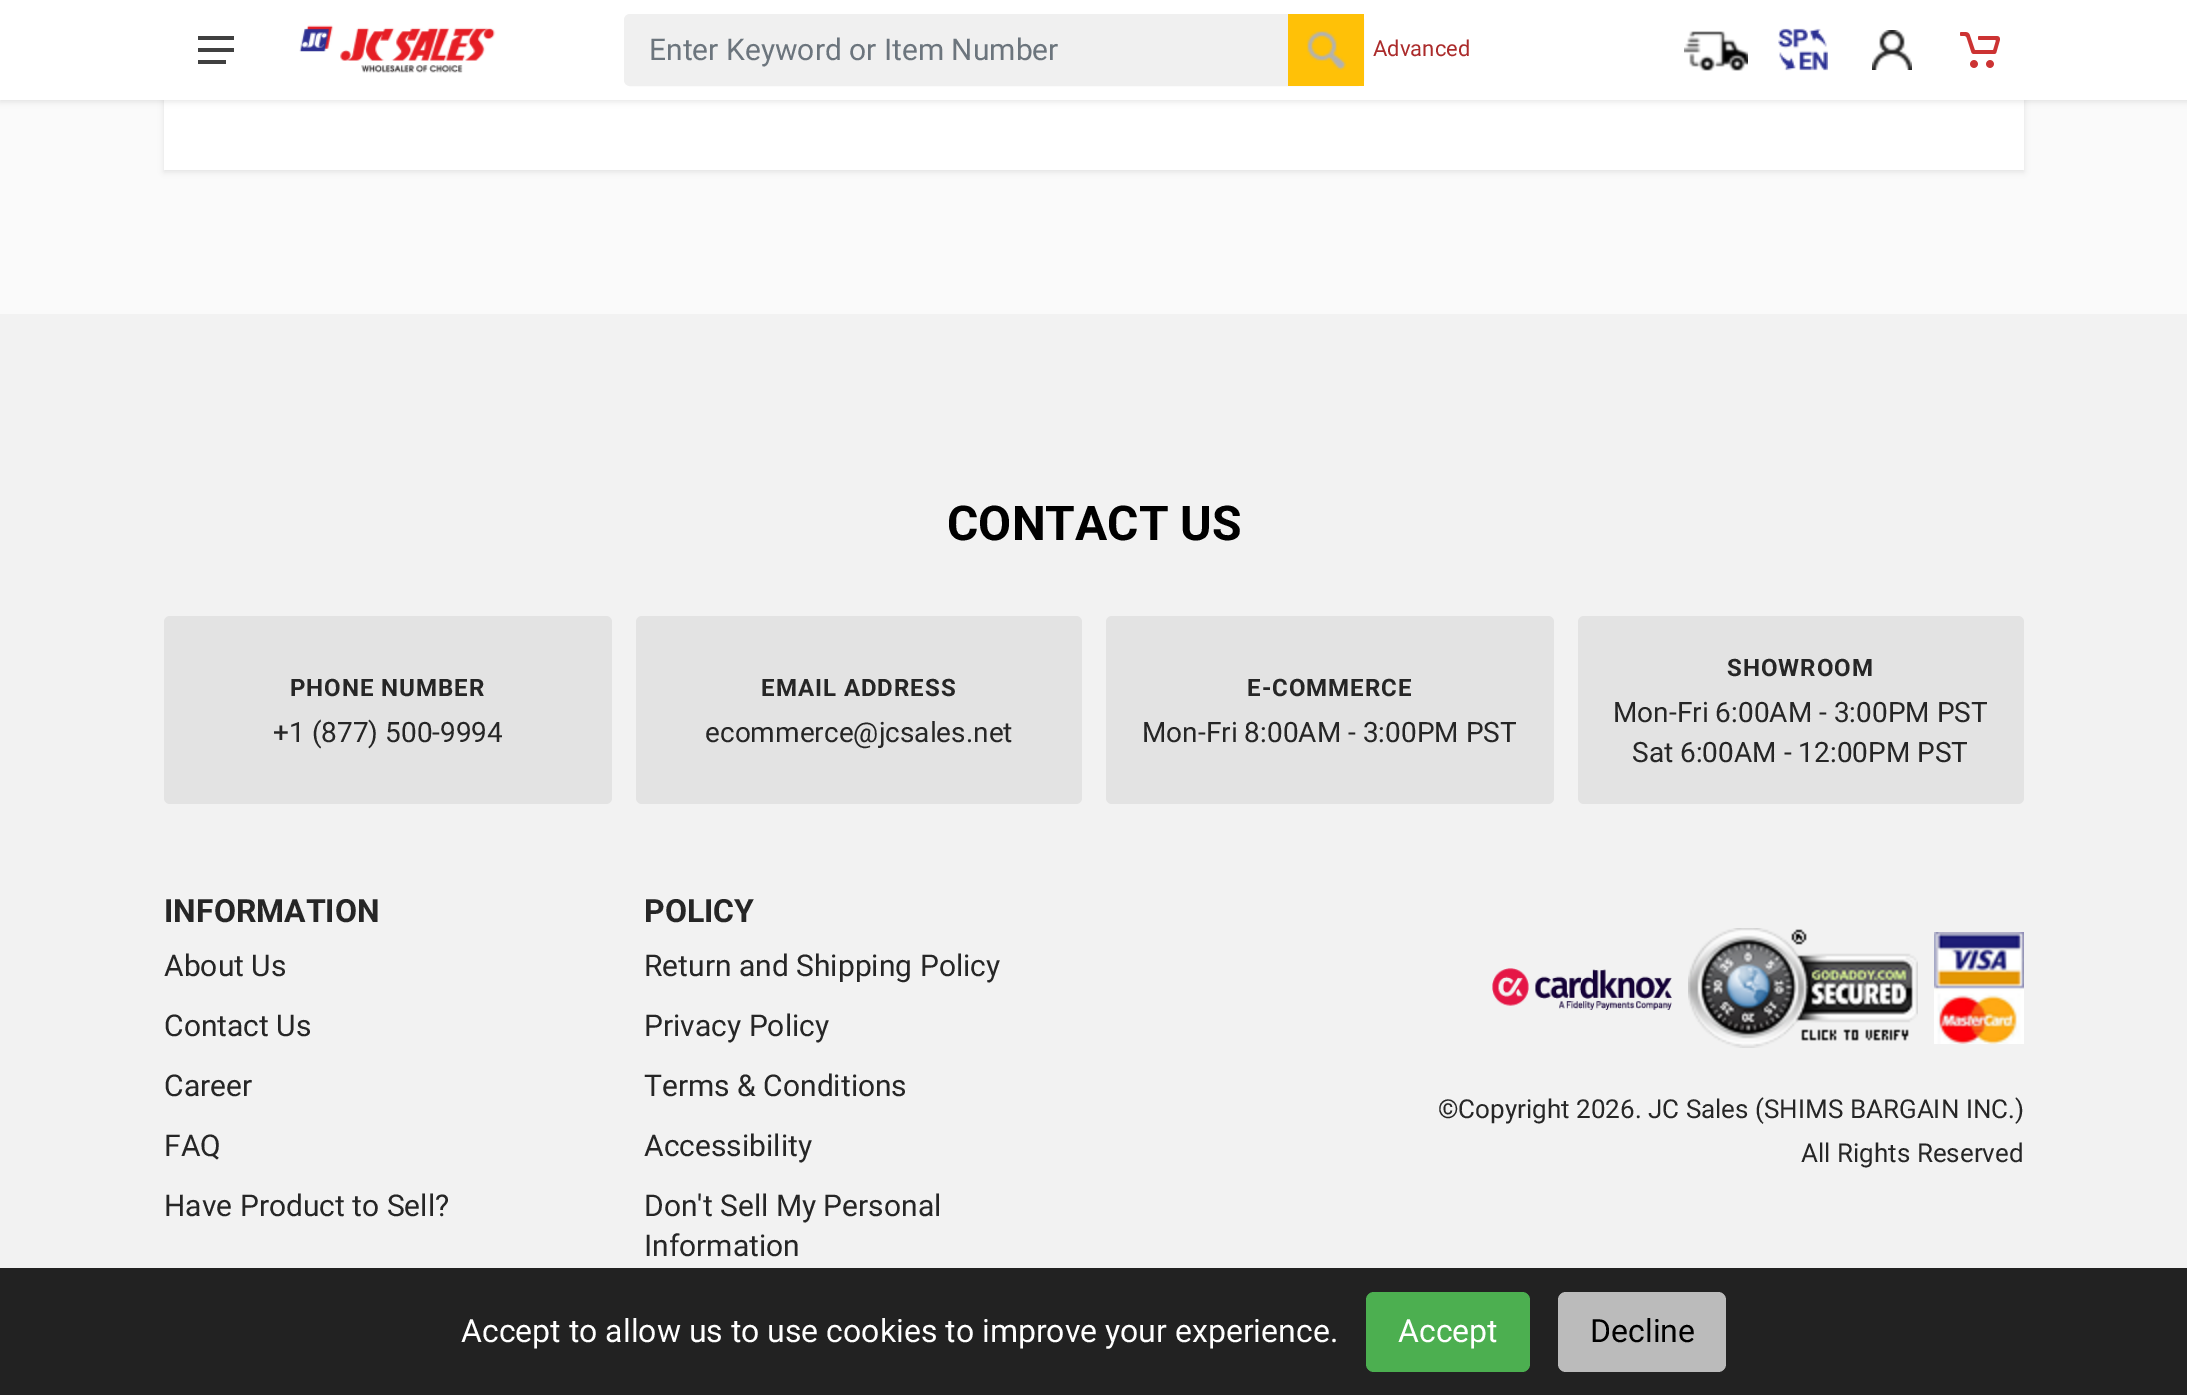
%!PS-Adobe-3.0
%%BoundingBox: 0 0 2187 1395
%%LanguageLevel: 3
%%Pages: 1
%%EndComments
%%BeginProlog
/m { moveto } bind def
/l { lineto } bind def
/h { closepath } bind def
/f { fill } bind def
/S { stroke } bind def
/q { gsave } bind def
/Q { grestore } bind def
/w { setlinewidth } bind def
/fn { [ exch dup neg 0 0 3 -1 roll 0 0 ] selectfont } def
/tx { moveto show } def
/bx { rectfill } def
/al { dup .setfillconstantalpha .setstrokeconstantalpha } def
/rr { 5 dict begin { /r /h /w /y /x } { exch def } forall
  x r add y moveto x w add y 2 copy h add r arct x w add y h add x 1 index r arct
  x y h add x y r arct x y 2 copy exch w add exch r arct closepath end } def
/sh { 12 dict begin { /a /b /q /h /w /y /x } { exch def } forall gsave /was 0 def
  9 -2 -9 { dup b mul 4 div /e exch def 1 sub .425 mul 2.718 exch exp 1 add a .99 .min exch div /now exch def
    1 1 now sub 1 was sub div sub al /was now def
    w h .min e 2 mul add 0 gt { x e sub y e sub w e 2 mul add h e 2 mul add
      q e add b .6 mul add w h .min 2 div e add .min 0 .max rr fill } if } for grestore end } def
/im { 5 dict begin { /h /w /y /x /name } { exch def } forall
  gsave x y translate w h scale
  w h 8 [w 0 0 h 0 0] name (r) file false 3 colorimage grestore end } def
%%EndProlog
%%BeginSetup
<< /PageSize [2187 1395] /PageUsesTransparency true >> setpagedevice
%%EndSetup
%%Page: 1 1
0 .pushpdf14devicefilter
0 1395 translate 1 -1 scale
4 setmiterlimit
0.98 setgray
0 0 2187 1395 bx
0 setgray
164 -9 1860 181 0 3 0.09 sh
1 setgray
164 100 1860 70 bx
0 setgray
0 2 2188 100 0 3 0.09 sh
1 setgray
0 0 2187 100 bx
0.251 setgray
198 52 m 198 48 l 234 48 l 234 52 l h 198 36 m 234 36 l 234 40 l 198 40 l h 226 64 m 198 64 l 198 60 l 226 60 l h f
(image0.raw) 299 25 197 48 im
0.941 setgray
625 15 738 70 5 rr q f Q
2 w
S
/Roboto-Regular 30 fn
0.424 0.459 0.49 setrgbcolor
(Enter Keyword or Item Number) 649 60 tx
1 0.757 0.027 setrgbcolor
1288 14 76 72 bx
(image1.raw) 1307 31 39 39 im
/Roboto-Regular 22 fn
0.671 0.169 0.169 setrgbcolor
(Advanced) 1373 56 tx
(image2.raw) 1684 31 64 40 im
(image3.raw) 1778 28 50 43 im
(image4.raw) 1872 30 40 40 im
(image5.raw) 1960 32 40 36 im
0.949 setgray
0 314 2187 954 bx
/Roboto-Bold 48 fn
0 setgray
(CONTACT US) 947 540 tx
0.89 setgray
164 616 448 188 6 rr f
/Roboto-Bold 24 fn
0.149 setgray
290 696 m 1 0 (PHONE NUMBER) ashow
/Roboto-Regular 28 fn
(+1 \(877\) 500-9994) 273 742 tx
0.89 setgray
636 616 446 188 6 rr f
/Roboto-Bold 24 fn
0.149 setgray
761 696 m 1 0 (EMAIL ADDRESS) ashow
/Roboto-Regular 28 fn
(ecommerce@jcsales.net) 705 742 tx
0.89 setgray
1106 616 448 188 6 rr f
/Roboto-Bold 24 fn
0.149 setgray
1247 696 m 1 0 (E-COMMERCE) ashow
/Roboto-Regular 28 fn
(Mon-Fri 8:00AM - 3:00PM PST) 1142 742 tx
0.89 setgray
1578 616 446 188 6 rr f
/Roboto-Bold 24 fn
0.149 setgray
1727 676 m 1 0 (SHOWROOM) ashow
/Roboto-Regular 28 fn
(Mon-Fri 6:00AM - 3:00PM PST) 1613 722 tx
(Sat 6:00AM - 12:00PM PST) 1632 762 tx
/Roboto-Bold 32 fn
(INFORMATION) 164 922 tx
/Roboto-Regular 30 fn
(About Us) 164 976 tx
(Contact Us) 164 1036 tx
(Career) 164 1096 tx
(FAQ) 164 1156 tx
(Have Product to Sell?) 164 1216 tx
/Roboto-Bold 32 fn
(POLICY) 644 922 tx
/Roboto-Regular 30 fn
(Return and Shipping Policy) 644 976 tx
(Privacy Policy) 644 1036 tx
(Terms & Conditions) 644 1096 tx
(Accessibility) 644 1156 tx
(Don't Sell My Personal) 644 1216 tx
(Information) 644 1256 tx
(image6.raw) 1492 968 180 42 im
(image7.raw) 1688 928 230 120 im
(image8.raw) 1934 932 90 112 im
/Roboto-Regular 26 fn
(©Copyright 2026. JC Sales \(SHIMS BARGAIN INC.\)) 1438 1118 tx
(All Rights Reserved) 1801 1162 tx
0.133 setgray
0 1268 2187 127 bx
/Roboto-Regular 32 fn
1 setgray
(Accept to allow us to use cookies to improve your experience.) 461 1342 tx
0.298 0.686 0.314 setrgbcolor
1366 1292 164 80 8 rr f
1 setgray
(Accept) 1398 1342 tx
0.733 setgray
1558 1292 168 80 8 rr f
0 setgray
(Decline) 1590 1342 tx
.poppdf14devicefilter showpage
%%EOF
